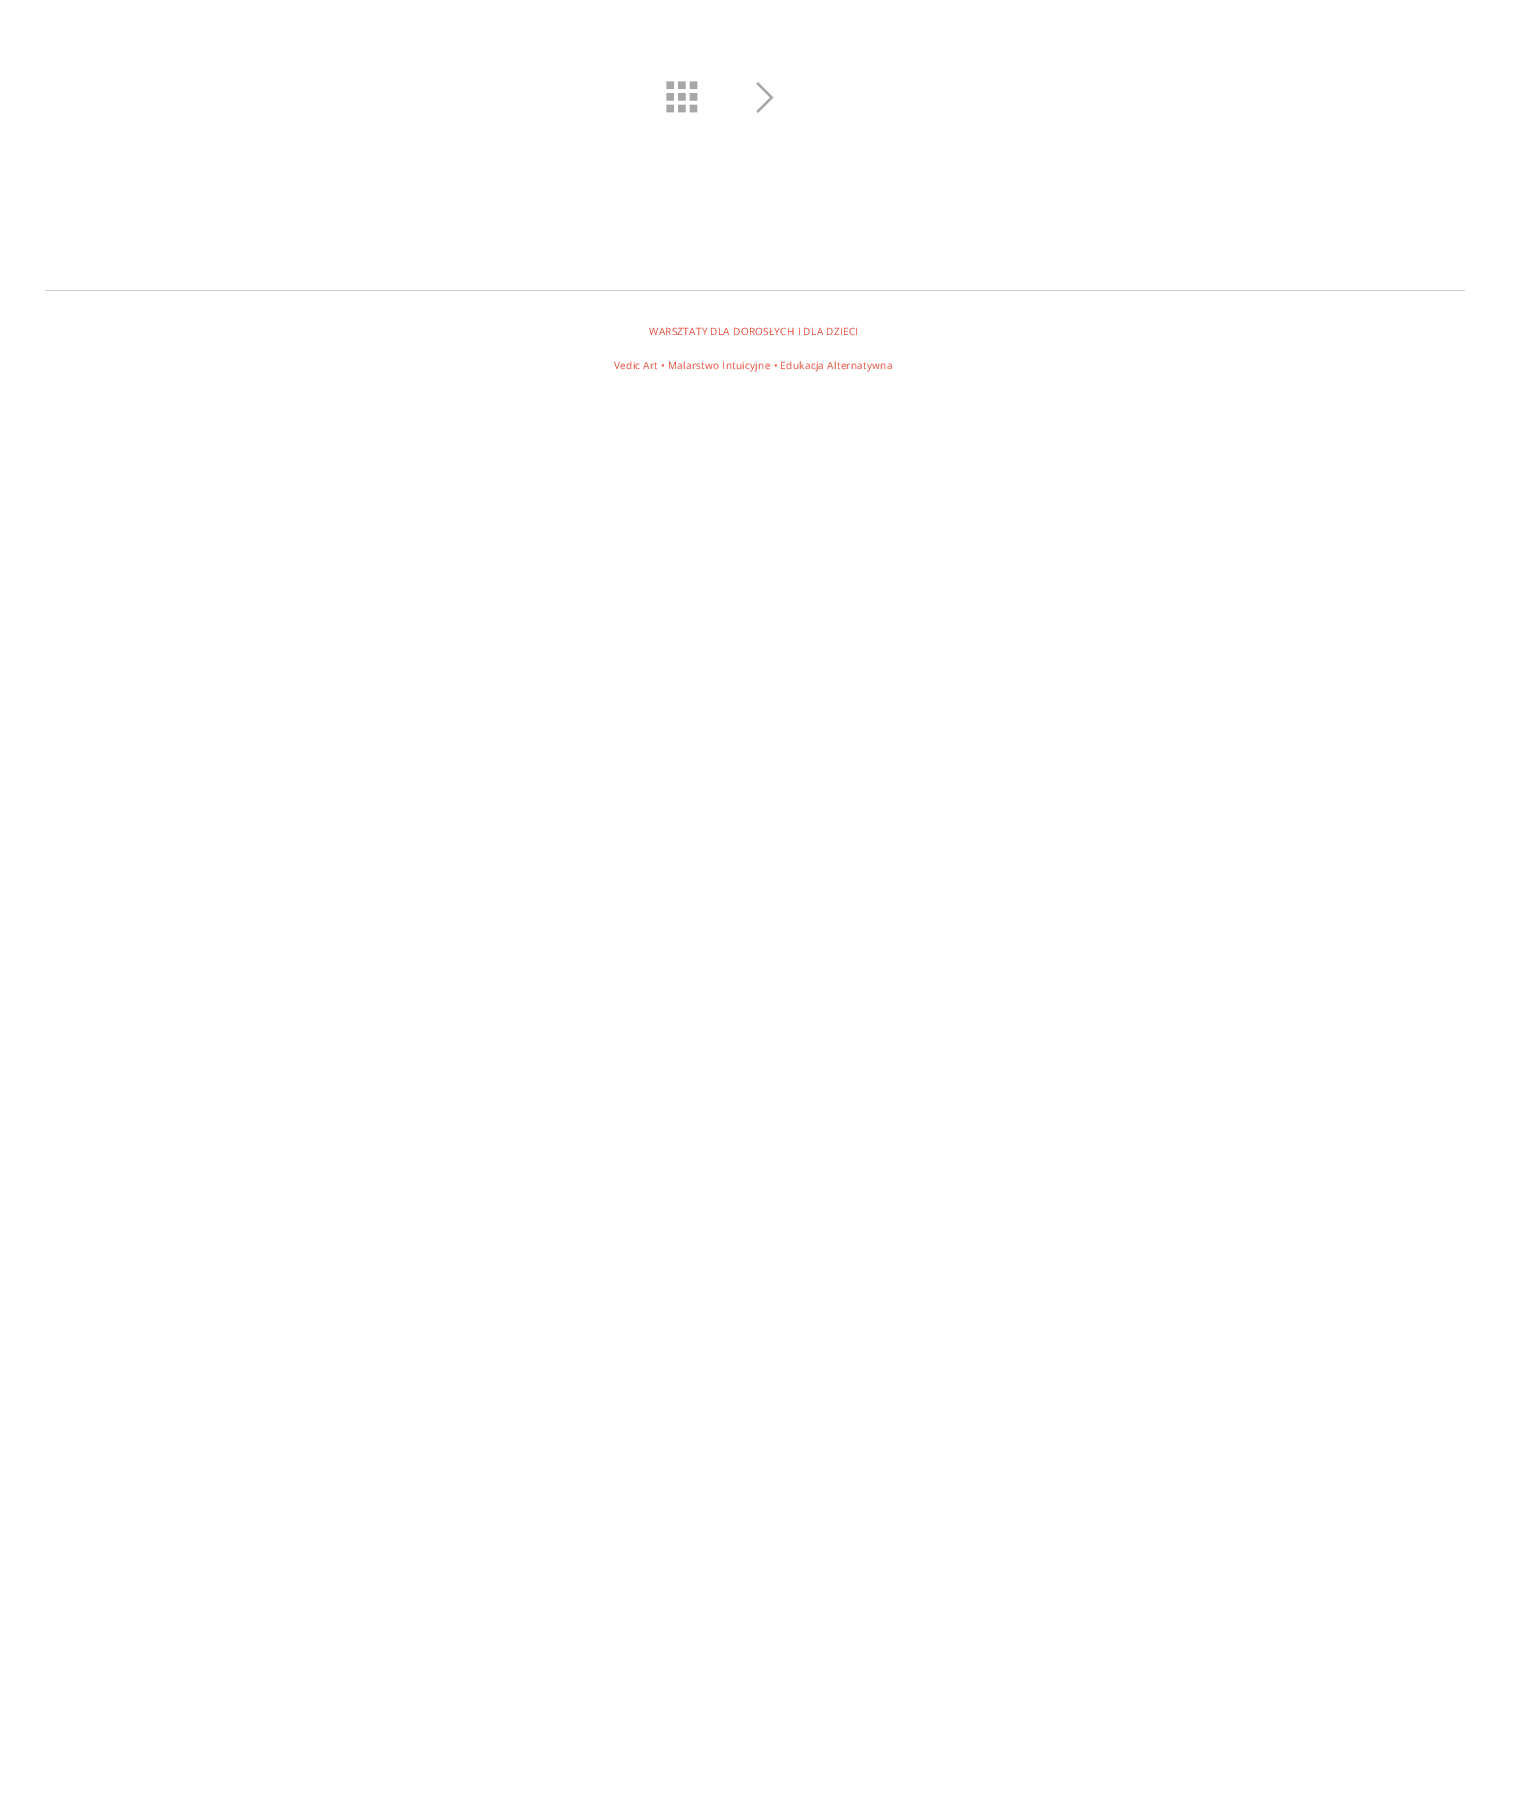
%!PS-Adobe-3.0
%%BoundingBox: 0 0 1515 1793
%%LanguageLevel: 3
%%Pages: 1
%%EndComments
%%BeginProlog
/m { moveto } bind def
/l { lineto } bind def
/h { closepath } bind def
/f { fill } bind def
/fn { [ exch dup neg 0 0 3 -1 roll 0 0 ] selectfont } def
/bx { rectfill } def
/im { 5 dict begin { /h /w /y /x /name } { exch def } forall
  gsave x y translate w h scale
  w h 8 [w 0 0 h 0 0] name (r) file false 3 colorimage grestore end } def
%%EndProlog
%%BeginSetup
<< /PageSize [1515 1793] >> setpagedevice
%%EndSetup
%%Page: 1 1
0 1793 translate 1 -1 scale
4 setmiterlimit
1 setgray
0 0 1515 1793 bx
(image0.raw) 666 81 32 32 im
0.655 setgray
773.5 97.5 m 758 82 l 756.5 84 l 770 97.5 l 756.5 111 l 758 113 l h f
0.8 setgray
45 290 1420 1 bx
/OpenSans-Regular 10 fn
0.906 0.298 0.235 setrgbcolor
649 335 m 0.3 0 (WARSZTATY DLA DOROSŁYCH I DLA DZIECI) ashow
614 369 m 0.3 0 (Vedic Art • Malarstwo Intuicyjne • Edukacja Alternatywna) ashow
showpage
%%EOF
